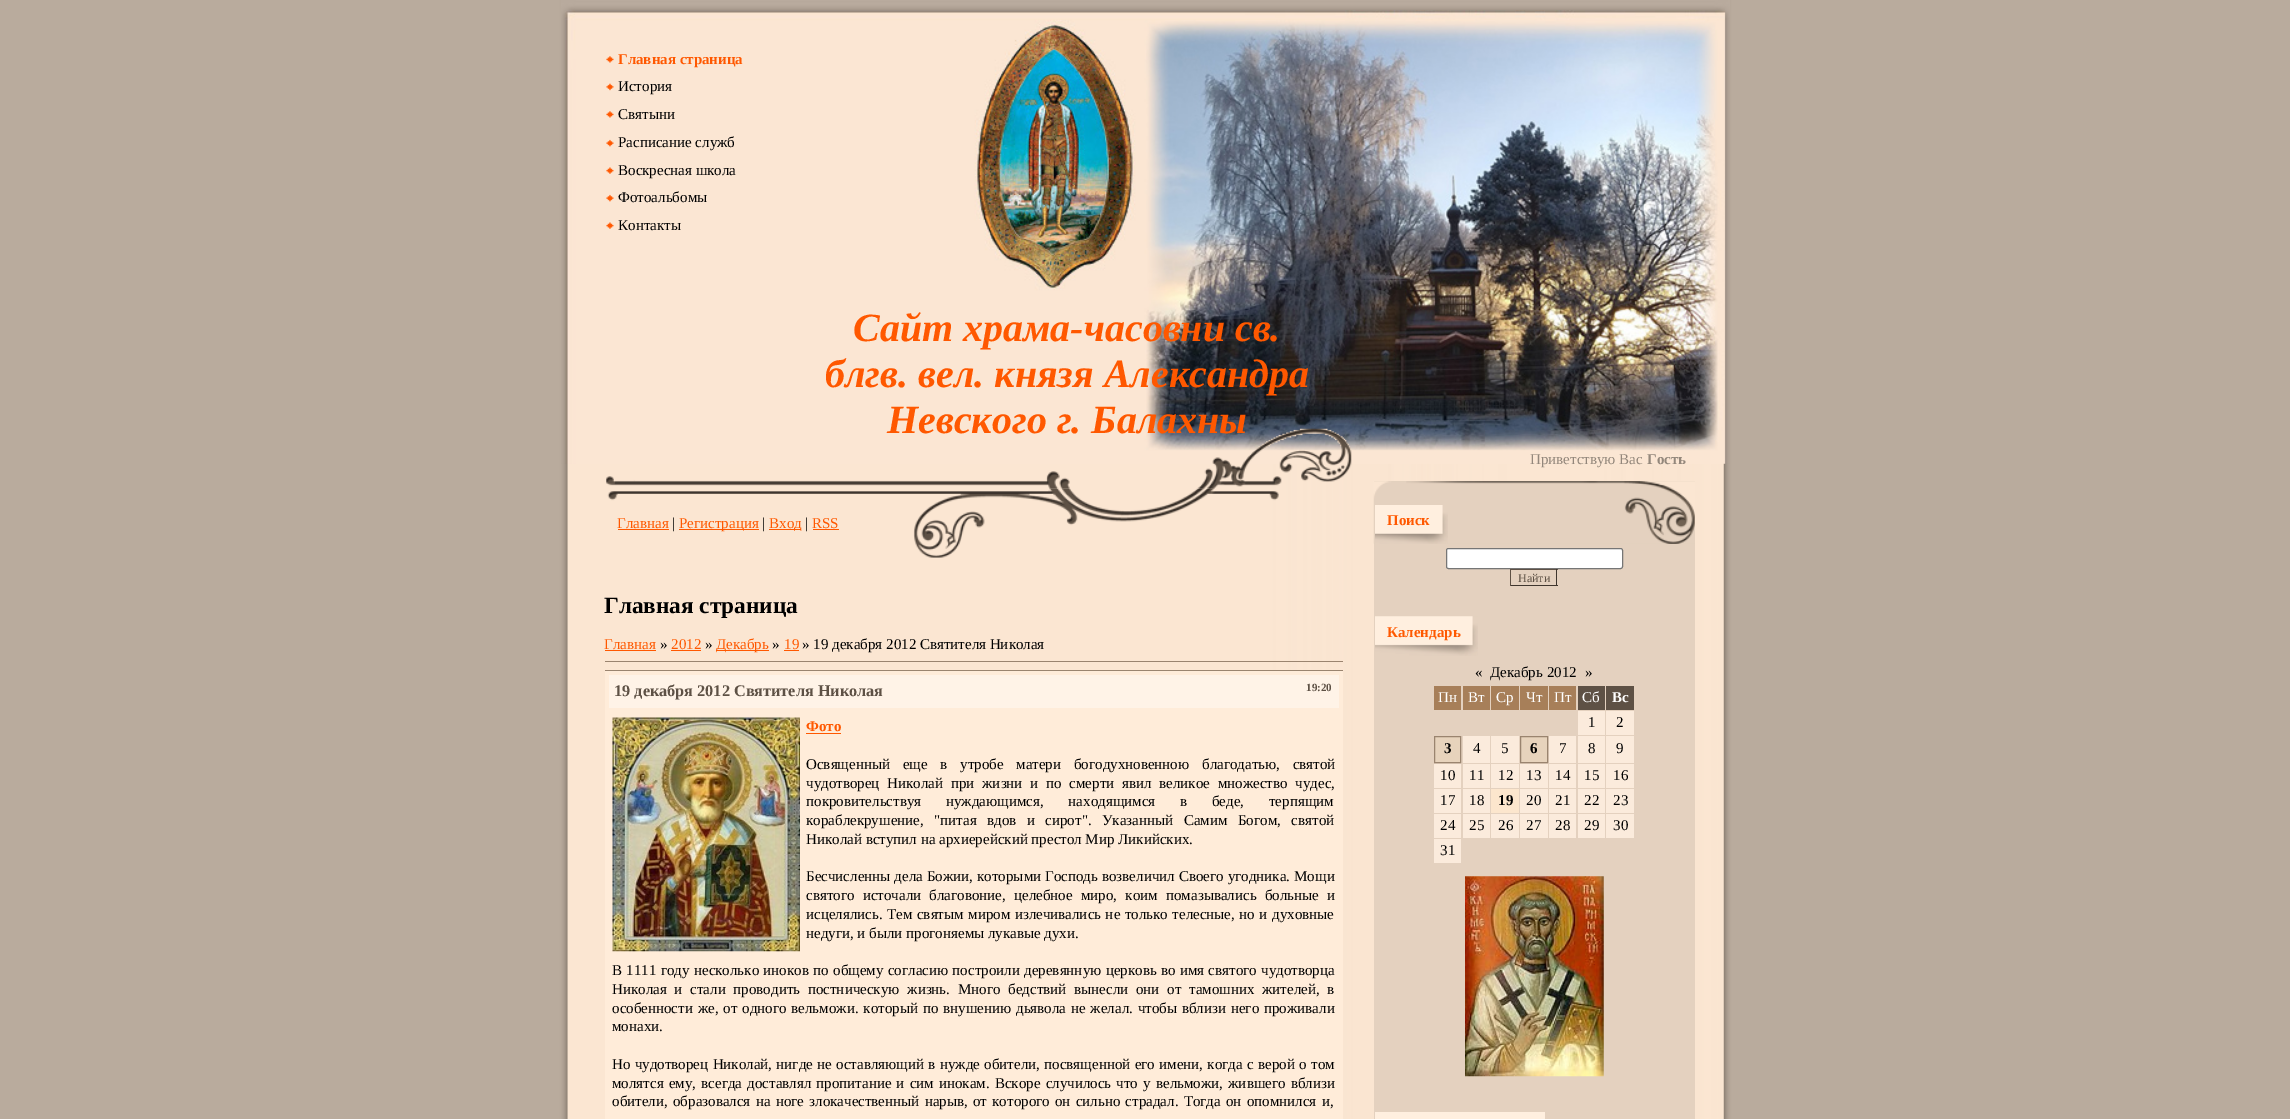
%!PS-Adobe-3.0
%%BoundingBox: 0 0 2290 1119
%%LanguageLevel: 3
%%Pages: 1
%%EndComments
%%BeginProlog
/m { moveto } bind def
/l { lineto } bind def
/h { closepath } bind def
/f { fill } bind def
/S { stroke } bind def
/q { gsave } bind def
/Q { grestore } bind def
/fn { [ exch dup neg 0 0 3 -1 roll 0 0 ] selectfont } def
/tx { moveto show } def
/bx { rectfill } def
/rr { 5 dict begin { /r /h /w /y /x } { exch def } forall
  x r add y moveto x w add y 2 copy h add r arct x w add y h add x 1 index r arct
  x y h add x y r arct x y 2 copy exch w add exch r arct closepath end } def
/im { 5 dict begin { /h /w /y /x /name } { exch def } forall
  gsave x y translate w h scale
  w h 8 [w 0 0 h 0 0] name (r) file false 3 colorimage grestore end } def
%%EndProlog
%%BeginSetup
<< /PageSize [2290 1119] >> setpagedevice
%%EndSetup
%%Page: 1 1
0 1119 translate 1 -1 scale
4 setmiterlimit
0.725 0.671 0.616 setrgbcolor
0 0 2290 1119 bx
(image0.raw) 555 0 1181 1119 im
(image1.raw) 561 0 1169 464 im
(image7.raw) 607 488 672 70 im
(image2.raw) 606 428 746 61 im
(image3.raw) 606 56 8 7 im
/LiberationSerif-Bold 15 fn
1 0.345 0 setrgbcolor
(Главная страница) 618 64 tx
(image4.raw) 606 83 8 8 im
/LiberationSerif-Regular 15 fn
0 setgray
(История) 618 91 tx
(image3.raw) 606 111 8 7 im
(Святыни) 618 119 tx
(image5.raw) 606 139 8 8 im
(Расписание служб) 618 147 tx
(image6.raw) 606 167 8 7 im
(Воскресная школа) 618 175 tx
(image5.raw) 606 194 8 8 im
(Фотоальбомы) 618 202 tx
(image6.raw) 606 222 8 7 im
(Контакты) 618 230 tx
/LiberationSerif-BoldItalic 40 fn
1 0.345 0 setrgbcolor
(Сайт храма-часовни св.) 853 341 tx
(блгв. вел. князя Александра) 825 387 tx
(Невского г. Балахны) 887 433 tx
/LiberationSerif-Regular 15 fn
(Главная) 617 528 tx
618 529 51 1 bx
0 setgray
(|) 672 528 tx
1 0.345 0 setrgbcolor
679 529 80 1 bx
(Регистрация) 679 528 tx
0 setgray
(|) 762 528 tx
1 0.345 0 setrgbcolor
769 529 32 1 bx
(Вход) 769 528 tx
0 setgray
(|) 805 528 tx
1 0.345 0 setrgbcolor
(RSS) 812 528 tx
813 529 26 1 bx
/LiberationSerif-Bold 23.25 fn
0 setgray
(Главная страница) 604 613 tx
/LiberationSerif-Regular 15 fn
1 0.345 0 setrgbcolor
(Главная) 604 649 tx
605 650 51 1 bx
0 setgray
(») 660 649 tx
1 0.345 0 setrgbcolor
(2012) 671 649 tx
671 650 30 1 bx
0 setgray
(») 705 649 tx
1 0.345 0 setrgbcolor
716 650 53 1 bx
(Декабрь) 716 649 tx
0 setgray
(») 772 649 tx
1 0.345 0 setrgbcolor
(19) 784 649 tx
784 650 15 1 bx
0 setgray
(» 19 декабря 2012 Святителя Николая) 802 649 tx
0.604 0.518 0.435 setrgbcolor
605 661 738 1 bx
1 0.925 0.851 setrgbcolor
605 671 738 448 bx
0.604 0.518 0.435 setrgbcolor
605 670 738 1 bx
1 0.953 0.906 setrgbcolor
609 675 730 33 bx
/LiberationSerif-Bold 16.25 fn
0.369 0.318 0.271 setrgbcolor
(19 декабря 2012 Святителя Николая) 614 696 tx
/LiberationSerif-Bold 11 fn
(19:20) 1306 691 tx
(image8.raw) 612 717 188 235 im
/LiberationSerif-Bold 15 fn
1 0.345 0 setrgbcolor
(Фото) 806 731 tx
806 733 35 1 bx
/LiberationSerif-Regular 15 fn
0 setgray
806 769 m 9 0 32 (Освященный еще в утробе матери богодухновенною благодатью, святой) widthshow
806 788 m 4 0 32 (чудотворец Николай при жизни и по смерти явил великое множество чудес,) widthshow
806 806 m 21 0 32 (покровительствуя нуждающимся, находящимся в беде, терпящим) widthshow
806 825 m 6.75 0 32 (кораблекрушение, "питая вдов и сирот". Указанный Самим Богом, святой) widthshow
(Николай вступил на архиерейский престол Мир Ликийских.) 806 844 tx
806 881 m 0.25 0 32 (Бесчисленны дела Божии, которыми Господь возвеличил Своего угодника. Мощи) widthshow
806 900 m 4.5 0 32 (святого источали благовоние, целебное миро, коим помазывались больные и) widthshow
806 919 m 0.75 0 32 (исцелялись. Тем святым миром излечивались не только телесные, но и духовные) widthshow
(недуги, и были прогоняемы лукавые духи.) 806 938 tx
612 975 m 0.6 0 32 (В 1111 году несколько иноков по общему согласию построили деревянную церковь во имя святого чудотворца) widthshow
612 994 m 4 0 32 (Николая и стали проводить постническую жизнь. Много бедствий вынесли они от тамошних жителей, в) widthshow
612 1013 m 1.1 0 32 (особенности же, от одного вельможи. который по внушению дьявола не желал. чтобы вблизи него проживали) widthshow
(монахи.) 612 1031 tx
612 1069 m 0.6 0 32 (Но чудотворец Николай, нигде не оставляющий в нужде обители, посвященной его имени, когда с верой о том) widthshow
612 1088 m 1.4 0 32 (молятся ему, всегда доставлял пропитание и сим инокам. Вскоре случилось что у вельможи, жившего вблизи) widthshow
612 1106 m 1.5 0 32 (обители, образовался на ноге злокачественный нарыв, от которого он сильно страдал. Тогда он опомнился и,) widthshow
0.576 0.529 0.482 setrgbcolor
(Приветствую Вас) 1530 464 tx
/LiberationSerif-Bold 15 fn
(Гость) 1647 464 tx
0.894 0.82 0.749 setrgbcolor
1374 481 321 638 bx
(image9.raw) 1373 481 322 63 im
(image10.raw) 1375 505 73 39 im
1 0.345 0 setrgbcolor
(Поиск) 1387 525 tx
1 setgray
1446.5 548.5 176 20 2 rr q f Q
0.463 setgray
S
0.369 0.318 0.271 setrgbcolor
1510 569 48 1 bx
0.247 0.212 0.18 setrgbcolor
1556 569 1 17 bx
1510 585 48 1 bx
0.369 0.318 0.271 setrgbcolor
1510 569 1 17 bx
/LiberationSerif-Regular 12 fn
(Найти) 1518 582 tx
(image11.raw) 1375 616 103 40 im
/LiberationSerif-Bold 15 fn
1 0.345 0 setrgbcolor
(Календарь) 1387 637 tx
/LiberationSerif-Regular 15 fn
0 setgray
(«) 1475 677 tx
(Декабрь 2012) 1490 677 tx
(») 1585 677 tx
0.655 0.498 0.349 setrgbcolor
1434 686 27 24 bx
1 setgray
(Пн) 1438 702 tx
0.655 0.498 0.349 setrgbcolor
1463 686 27 24 bx
1 setgray
(Вт) 1468 702 tx
0.655 0.498 0.349 setrgbcolor
1491 686 28 24 bx
1 setgray
(Ср) 1496 702 tx
0.655 0.498 0.349 setrgbcolor
1520 686 28 24 bx
1 setgray
(Чт) 1526 702 tx
0.655 0.498 0.349 setrgbcolor
1549 686 27 24 bx
1 setgray
(Пт) 1554 702 tx
0.369 0.318 0.271 setrgbcolor
1578 686 27 24 bx
1 setgray
(Сб) 1582 702 tx
0.369 0.318 0.271 setrgbcolor
1606 686 28 24 bx
/LiberationSerif-Bold 15 fn
1 setgray
(Вс) 1612 702 tx
0.984 0.922 0.863 setrgbcolor
1578 711 27 24 bx
/LiberationSerif-Regular 15 fn
0 setgray
(1) 1588 727 tx
0.984 0.922 0.863 setrgbcolor
1606 711 28 24 bx
0 setgray
(2) 1616 727 tx
0.906 0.827 0.737 setrgbcolor
1434.5 736.5 m 1460.5 736.5 l 1460.5 762.5 l 1434.5 762.5 l h q f Q
0.604 0.518 0.435 setrgbcolor
S
/LiberationSerif-Bold 15 fn
0 setgray
(3) 1444 753 tx
0.984 0.922 0.863 setrgbcolor
1463 736 27 27 bx
/LiberationSerif-Regular 15 fn
0 setgray
(4) 1473 753 tx
0.984 0.922 0.863 setrgbcolor
1491 736 28 27 bx
0 setgray
(5) 1501 753 tx
0.906 0.827 0.737 setrgbcolor
1520.5 736.5 m 1547.5 736.5 l 1547.5 762.5 l 1520.5 762.5 l h q f Q
0.604 0.518 0.435 setrgbcolor
S
/LiberationSerif-Bold 15 fn
0 setgray
(6) 1530 753 tx
0.984 0.922 0.863 setrgbcolor
1549 736 27 27 bx
/LiberationSerif-Regular 15 fn
0 setgray
(7) 1559 753 tx
0.984 0.922 0.863 setrgbcolor
1578 736 27 27 bx
0 setgray
(8) 1588 753 tx
0.984 0.922 0.863 setrgbcolor
1606 736 28 27 bx
0 setgray
(9) 1616 753 tx
0.984 0.922 0.863 setrgbcolor
1434 764 27 24 bx
0 setgray
(10) 1440 780 tx
0.984 0.922 0.863 setrgbcolor
1463 764 27 24 bx
0 setgray
(11) 1469 780 tx
0.984 0.922 0.863 setrgbcolor
1491 764 28 24 bx
0 setgray
(12) 1498 780 tx
0.984 0.922 0.863 setrgbcolor
1520 764 28 24 bx
0 setgray
(13) 1526 780 tx
0.984 0.922 0.863 setrgbcolor
1549 764 27 24 bx
0 setgray
(14) 1555 780 tx
0.984 0.922 0.863 setrgbcolor
1578 764 27 24 bx
0 setgray
(15) 1584 780 tx
0.984 0.922 0.863 setrgbcolor
1606 764 28 24 bx
0 setgray
(16) 1613 780 tx
0.984 0.922 0.863 setrgbcolor
1434 789 27 24 bx
0 setgray
(17) 1440 805 tx
0.984 0.922 0.863 setrgbcolor
1463 789 27 24 bx
0 setgray
(18) 1469 805 tx
0.988 0.902 0.804 setrgbcolor
1491 789 28 24 bx
/LiberationSerif-Bold 15 fn
0 setgray
(19) 1498 805 tx
0.984 0.922 0.863 setrgbcolor
1520 789 28 24 bx
/LiberationSerif-Regular 15 fn
0 setgray
(20) 1526 805 tx
0.984 0.922 0.863 setrgbcolor
1549 789 27 24 bx
0 setgray
(21) 1555 805 tx
0.984 0.922 0.863 setrgbcolor
1578 789 27 24 bx
0 setgray
(22) 1584 805 tx
0.984 0.922 0.863 setrgbcolor
1606 789 28 24 bx
0 setgray
(23) 1613 805 tx
0.984 0.922 0.863 setrgbcolor
1434 814 27 24 bx
0 setgray
(24) 1440 830 tx
0.984 0.922 0.863 setrgbcolor
1463 814 27 24 bx
0 setgray
(25) 1469 830 tx
0.984 0.922 0.863 setrgbcolor
1491 814 28 24 bx
0 setgray
(26) 1498 830 tx
0.984 0.922 0.863 setrgbcolor
1520 814 28 24 bx
0 setgray
(27) 1526 830 tx
0.984 0.922 0.863 setrgbcolor
1549 814 27 24 bx
0 setgray
(28) 1555 830 tx
0.984 0.922 0.863 setrgbcolor
1578 814 27 24 bx
0 setgray
(29) 1584 830 tx
0.984 0.922 0.863 setrgbcolor
1606 814 28 24 bx
0 setgray
(30) 1613 830 tx
0.984 0.922 0.863 setrgbcolor
1434 839 27 24 bx
0 setgray
(31) 1440 855 tx
(image12.raw) 1465 876 139 201 im
1 0.937 0.875 setrgbcolor
1375 1112 170 7 bx
showpage
%%EOF
